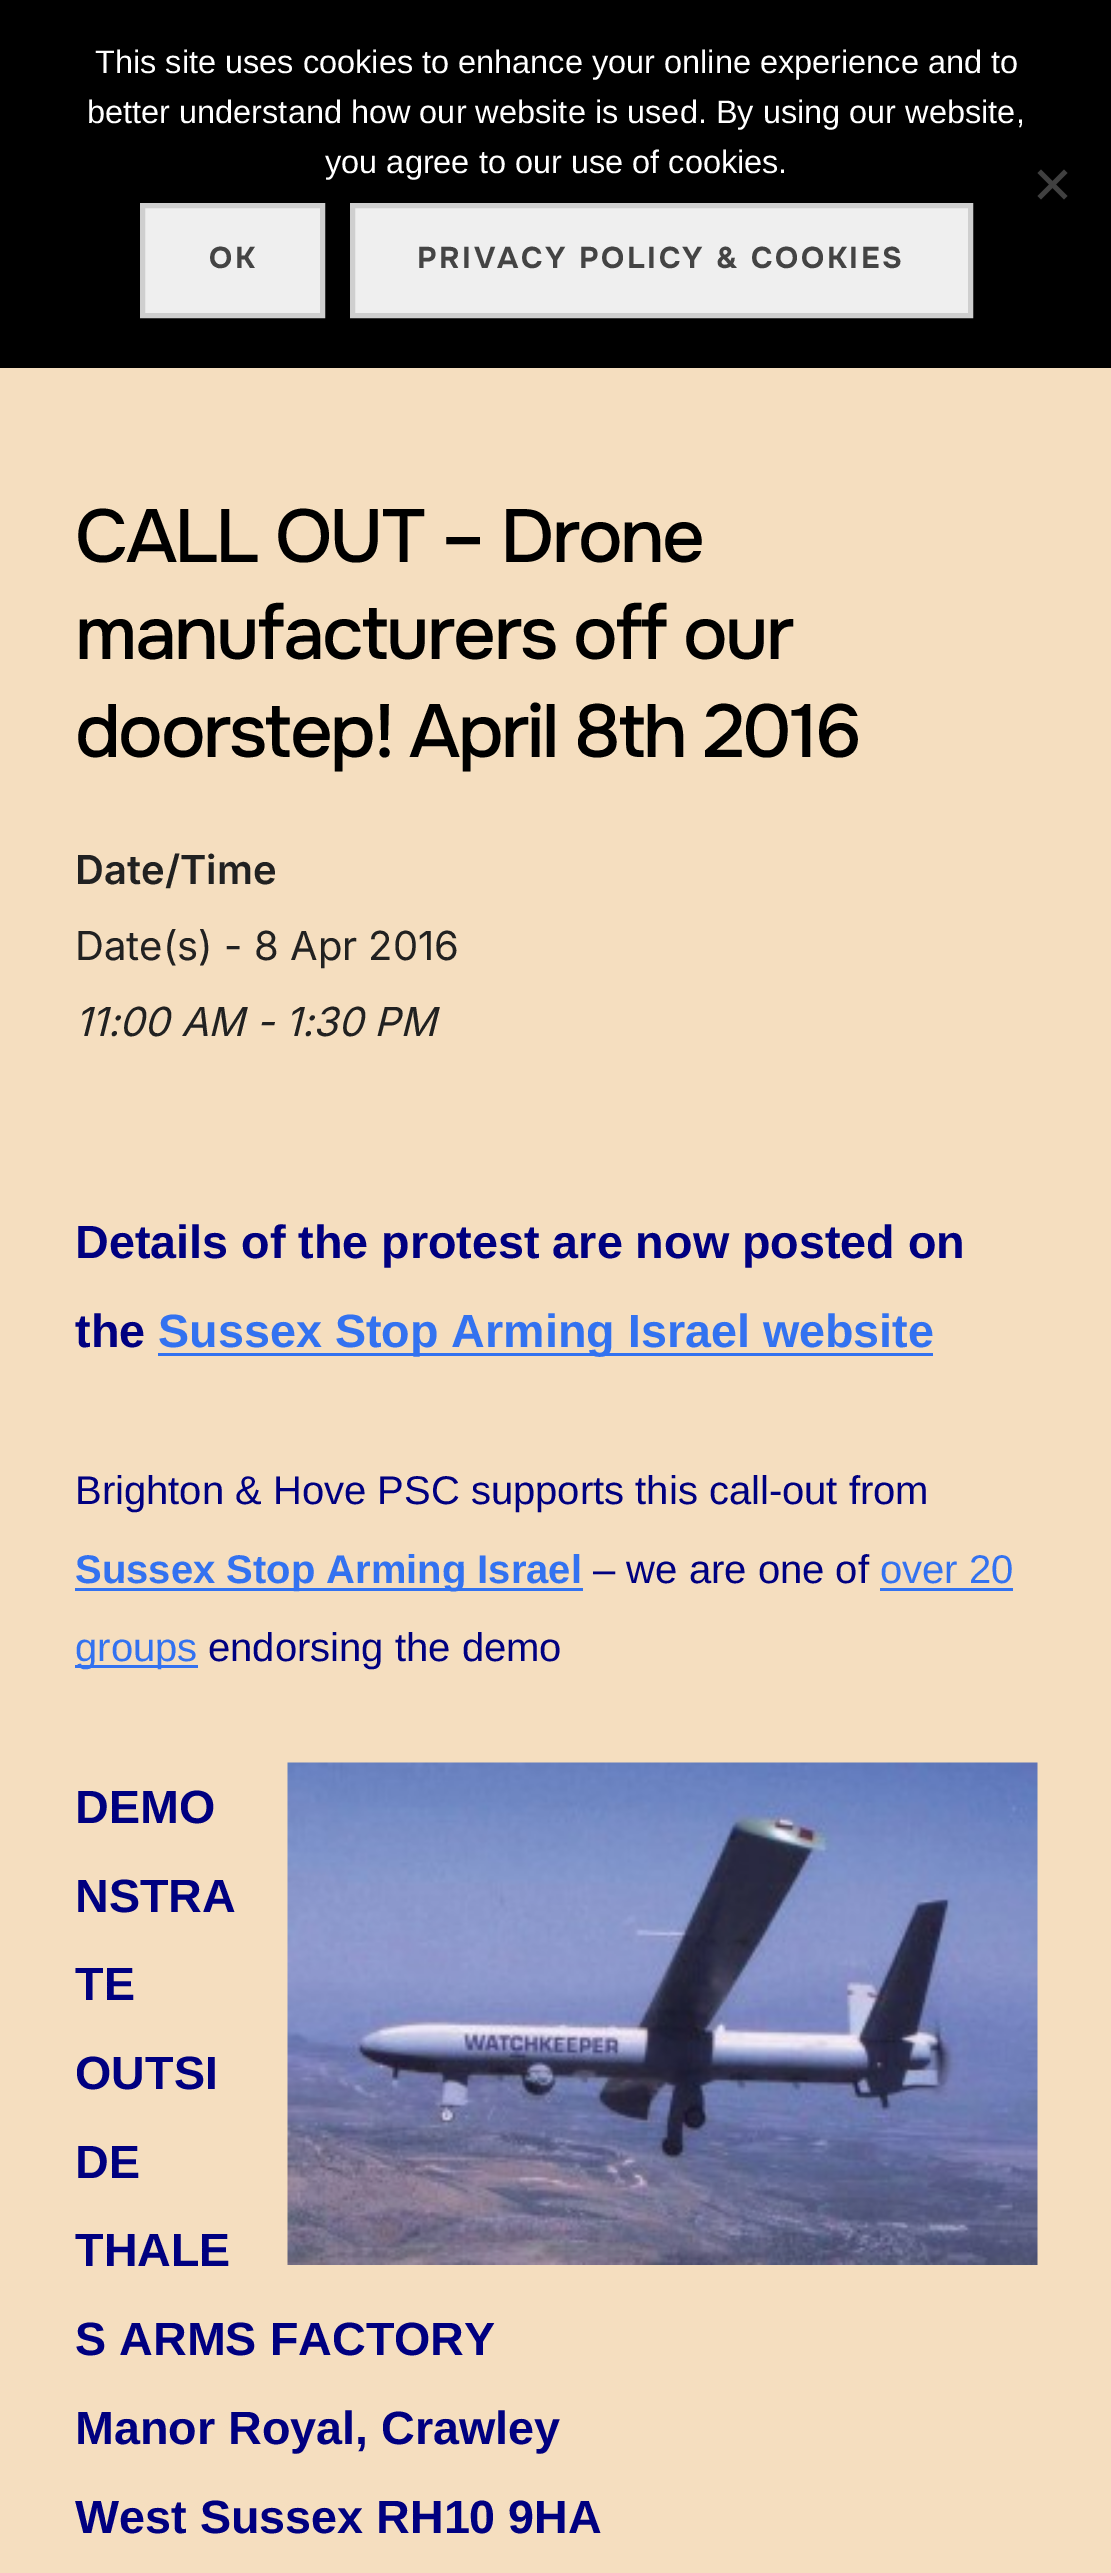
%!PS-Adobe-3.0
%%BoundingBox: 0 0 1111 2573
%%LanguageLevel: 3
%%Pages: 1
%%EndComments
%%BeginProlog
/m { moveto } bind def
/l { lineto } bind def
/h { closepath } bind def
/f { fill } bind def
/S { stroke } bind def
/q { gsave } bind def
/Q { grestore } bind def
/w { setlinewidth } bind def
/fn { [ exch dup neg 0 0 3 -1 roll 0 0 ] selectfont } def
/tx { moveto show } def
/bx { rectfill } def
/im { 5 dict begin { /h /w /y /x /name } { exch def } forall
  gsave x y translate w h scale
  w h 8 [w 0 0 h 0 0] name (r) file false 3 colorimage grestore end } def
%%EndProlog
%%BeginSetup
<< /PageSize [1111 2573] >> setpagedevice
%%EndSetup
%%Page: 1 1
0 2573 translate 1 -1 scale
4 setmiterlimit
0.961 0.871 0.749 setrgbcolor
0 0 1111 2573 bx
0 setgray
0 0 1111 368 bx
/LiberationSans-Regular 32.5 fn
1 setgray
(This site uses cookies to enhance your online experience and to) 95 73 tx
(better understand how our website is used. By using our website,) 87 123 tx
(you agree to our use of cookies.) 325 173 tx
0.251 setgray
1064 169.5 m 1067.5 173 l 1041 199.5 l 1037.5 196 l h f
1037.5 173 m 1041 169.5 l 1067.5 196 l 1064 199.5 l h f
0.937 setgray
142.5 205.5 m 322.5 205.5 l 322.5 315.5 l 142.5 315.5 l h q f Q
0.812 setgray
5 w
S
/Onest-Bold 30 fn
0.267 setgray
209 268 m 2.5 0 (OK) ashow
0.937 setgray
352.5 205.5 m 970.5 205.5 l 970.5 315.5 l 352.5 315.5 l h q f Q
0.812 setgray
S
0.267 setgray
417 268 m 2.5 0 (PRIVACY POLICY & COOKIES) ashow
/Onest-Medium 75 fn
0 setgray
75 562 m -2.5 0 (CALL OUT – Drone) ashow
75 659 m -1 0 32 -2.5 0 (manufacturers off our) awidthshow
75 757 m -1 0 32 -2.5 0 (doorstep! April 8th 2016) awidthshow
/Inter-SemiBold 40 fn
0.129 setgray
(Date/Time) 75 884 tx
/Inter-Regular 40 fn
(Date\(s\) - 8 Apr 2016) 75 960 tx
/Inter-Italic 40 fn
(11:00 AM - 1:30 PM) 75 1036 tx
/LiberationSans-Bold 46.7 fn
0 0 0.502 setrgbcolor
(Details of the protest are now posted on) 75 1258 tx
(the) 75 1347 tx
0.2 0.447 0.941 setrgbcolor
158 1353 775 3 bx
(Sussex Stop Arming Israel website) 158 1347 tx
/LiberationSans-Regular 40 fn
0 0 0.502 setrgbcolor
(Brighton & Hove PSC supports this call-out from) 75 1504 tx
0.2 0.447 0.941 setrgbcolor
75 1588 508 3 bx
/LiberationSans-Bold 40 fn
(Sussex Stop Arming Israel) 75 1583 tx
/LiberationSans-Regular 40 fn
0 0 0.502 setrgbcolor
(– we are one of) 593 1583 tx
0.2 0.447 0.941 setrgbcolor
(over 20) 880 1583 tx
880 1588 133 3 bx
75 1665 123 3 bx
(groups) 75 1661 tx
0 0 0.502 setrgbcolor
(endorsing the demo) 208 1661 tx
/LiberationSans-Bold 46.7 fn
(DEMO) 75 1823 tx
(image0.raw) 287 1762 751 503 im
(NSTRA) 75 1912 tx
(TE) 75 2000 tx
(OUTSI) 75 2089 tx
(DE) 75 2178 tx
(THALE) 75 2266 tx
(S ARMS FACTORY) 75 2355 tx
(Manor Royal, Crawley) 75 2444 tx
(West Sussex RH10 9HA) 75 2533 tx
showpage
%%EOF
